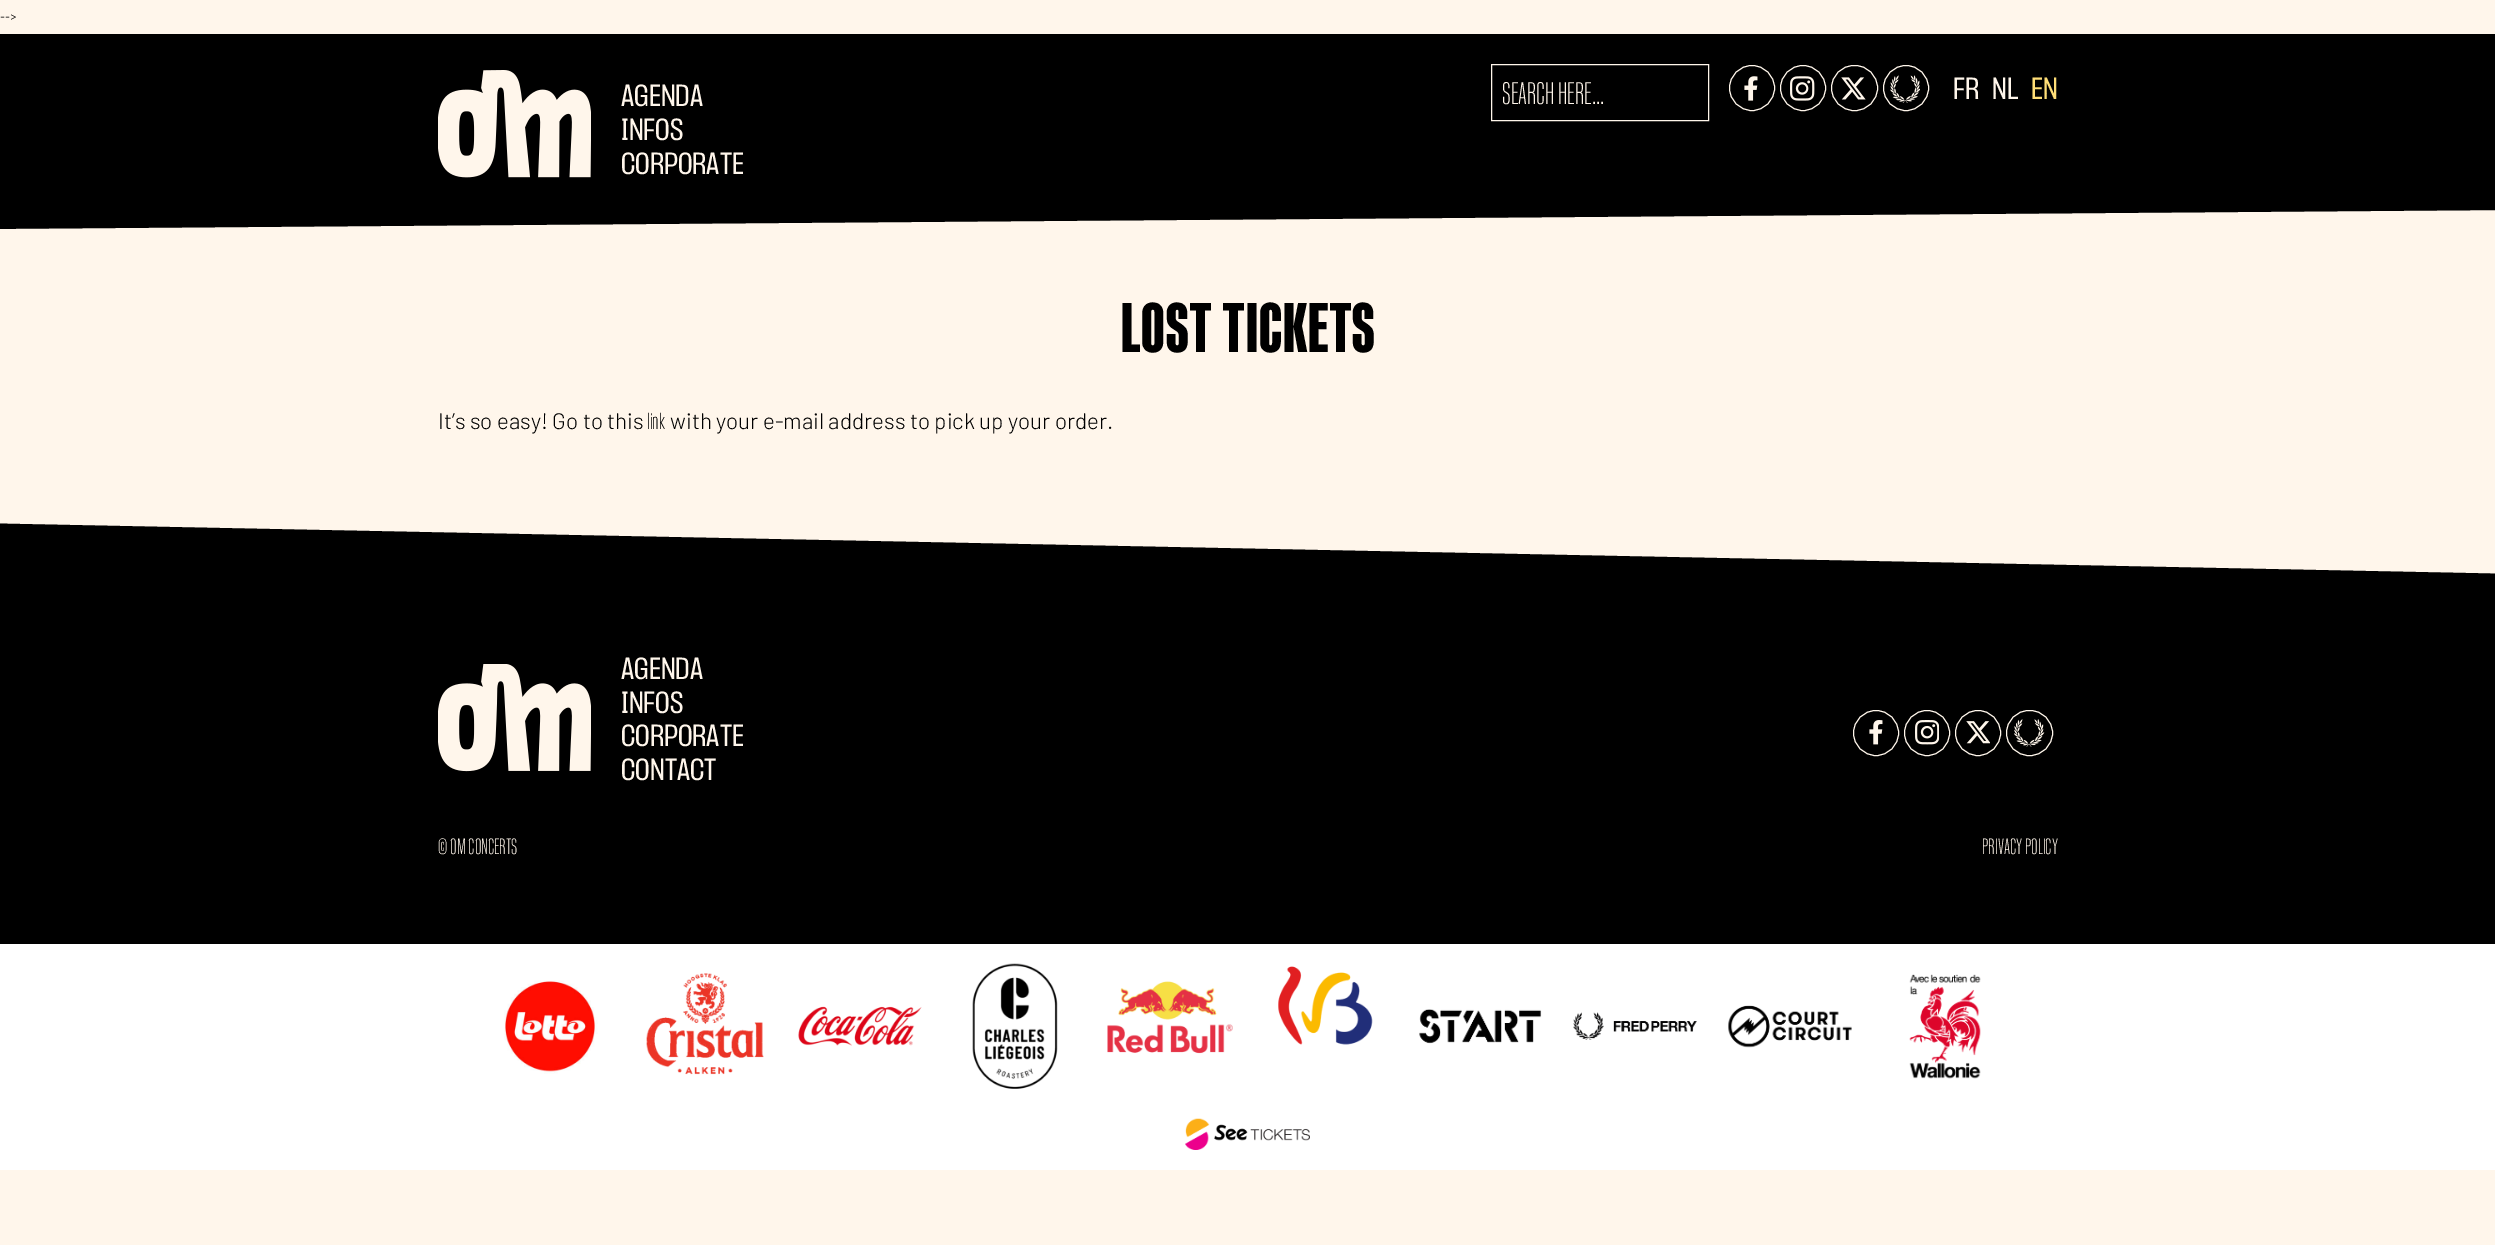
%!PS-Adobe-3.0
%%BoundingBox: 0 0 2495 1245
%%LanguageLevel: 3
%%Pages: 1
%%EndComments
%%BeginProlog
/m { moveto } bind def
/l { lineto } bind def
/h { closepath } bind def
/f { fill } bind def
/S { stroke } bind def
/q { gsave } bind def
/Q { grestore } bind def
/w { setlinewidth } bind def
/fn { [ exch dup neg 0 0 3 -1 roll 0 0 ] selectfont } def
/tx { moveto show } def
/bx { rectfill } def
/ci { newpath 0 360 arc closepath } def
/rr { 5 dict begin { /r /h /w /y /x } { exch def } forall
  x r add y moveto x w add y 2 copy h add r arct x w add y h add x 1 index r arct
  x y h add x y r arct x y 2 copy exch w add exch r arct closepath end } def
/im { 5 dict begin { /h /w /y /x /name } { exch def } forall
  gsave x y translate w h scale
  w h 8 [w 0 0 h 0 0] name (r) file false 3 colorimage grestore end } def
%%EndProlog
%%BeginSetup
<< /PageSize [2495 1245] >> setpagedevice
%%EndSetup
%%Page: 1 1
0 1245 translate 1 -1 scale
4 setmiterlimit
1 0.965 0.922 setrgbcolor
0 0 2495 1245 bx
/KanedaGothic-Light 22.4 fn
0 setgray
(-->) 0 24 tx
q
0 34 2495 200 rectclip
-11 224 m 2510 206 l 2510 -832 l -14 -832 l h f
Q
8.9 w
-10.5 224.5 m 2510 205.5 l S
(image0.raw) 438 70 153 108 im
/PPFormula-Regular 26.5 fn
1 0.965 0.922 setrgbcolor
(AGENDA) 621 106 tx
(INFOS) 621 140 tx
(CORPORATE) 621 174 tx
1 w
1491.5 64.5 217 56 rectstroke
/KanedaGothic-Light 31.5 fn
(SEARCH HERE...) 1502 104 tx
1752 88 22.5 ci S
(image1.raw) 1744 76 14 25 im
1803 88 22.5 ci S
(image2.raw) 1790 76 25 25 im
1831.5 65.5 46 45 22.5 rr S
(image3.raw) 1841 77 25 23 im
1906 88 22.5 ci S
(image4.raw) 1890 75 30 28 im
/PPFormula-Regular 26.5 fn
(FR) 1953 99 tx
(NL) 1992 99 tx
1 0.871 0.467 setrgbcolor
(EN) 2031 99 tx
/KanedaGothic-ExtraBold 71 fn
0 setgray
1121 352 m 1.25 0 (LOST TICKETS) ashow
/Barlow-Light 22.4 fn
(It’s so easy! Go to this) 438 429 tx
/KanedaGothic-Light 22.4 fn
(link) 647 429 tx
/Barlow-Light 22.4 fn
(with your e-mail address to pick up your order.) 670 429 tx
q
0 519 2495 82 rectclip
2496 578 m 0 528 l 0 626 l 2495 626 l h f
Q
8.8 w
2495.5 578 m 0 528 l S
0 601 2495 343 bx
(image5.raw) 438 664 153 108 im
/PPFormula-Regular 26.5 fn
1 0.965 0.922 setrgbcolor
(AGENDA) 621 679 tx
(INFOS) 621 713 tx
(CORPORATE) 621 746 tx
(CONTACT) 621 780 tx
1 w
1876 733 22.5 ci S
(image6.raw) 1869 720 14 25 im
1927 733 22.5 ci S
(image7.raw) 1915 720 24 25 im
1978 733 22.5 ci S
(image8.raw) 1966 721 24 23 im
2006.5 710.5 46 45 22.5 rr S
(image9.raw) 2014 719 31 28 im
/KanedaGothic-Light 22.4 fn
(© OM CONCERTS) 438 854 tx
(PRIVACY POLICY) 1982 854 tx
1 setgray
0 944 2495 226 bx
(image10.raw) 504 980 94 94 im
(image11.raw) 646 973 118 102 im
(image12.raw) 798 1006 124 40 im
(image13.raw) 972 963 86 126 im
(image14.raw) 1107 981 126 73 im
(image15.raw) 1278 966 95 79 im
(image16.raw) 1419 1009 123 35 im
(image17.raw) 1573 1012 124 28 im
(image18.raw) 1728 1005 124 43 im
(image19.raw) 1909 974 72 105 im
(image20.raw) 1185 1118 125 32 im
showpage
%%EOF
